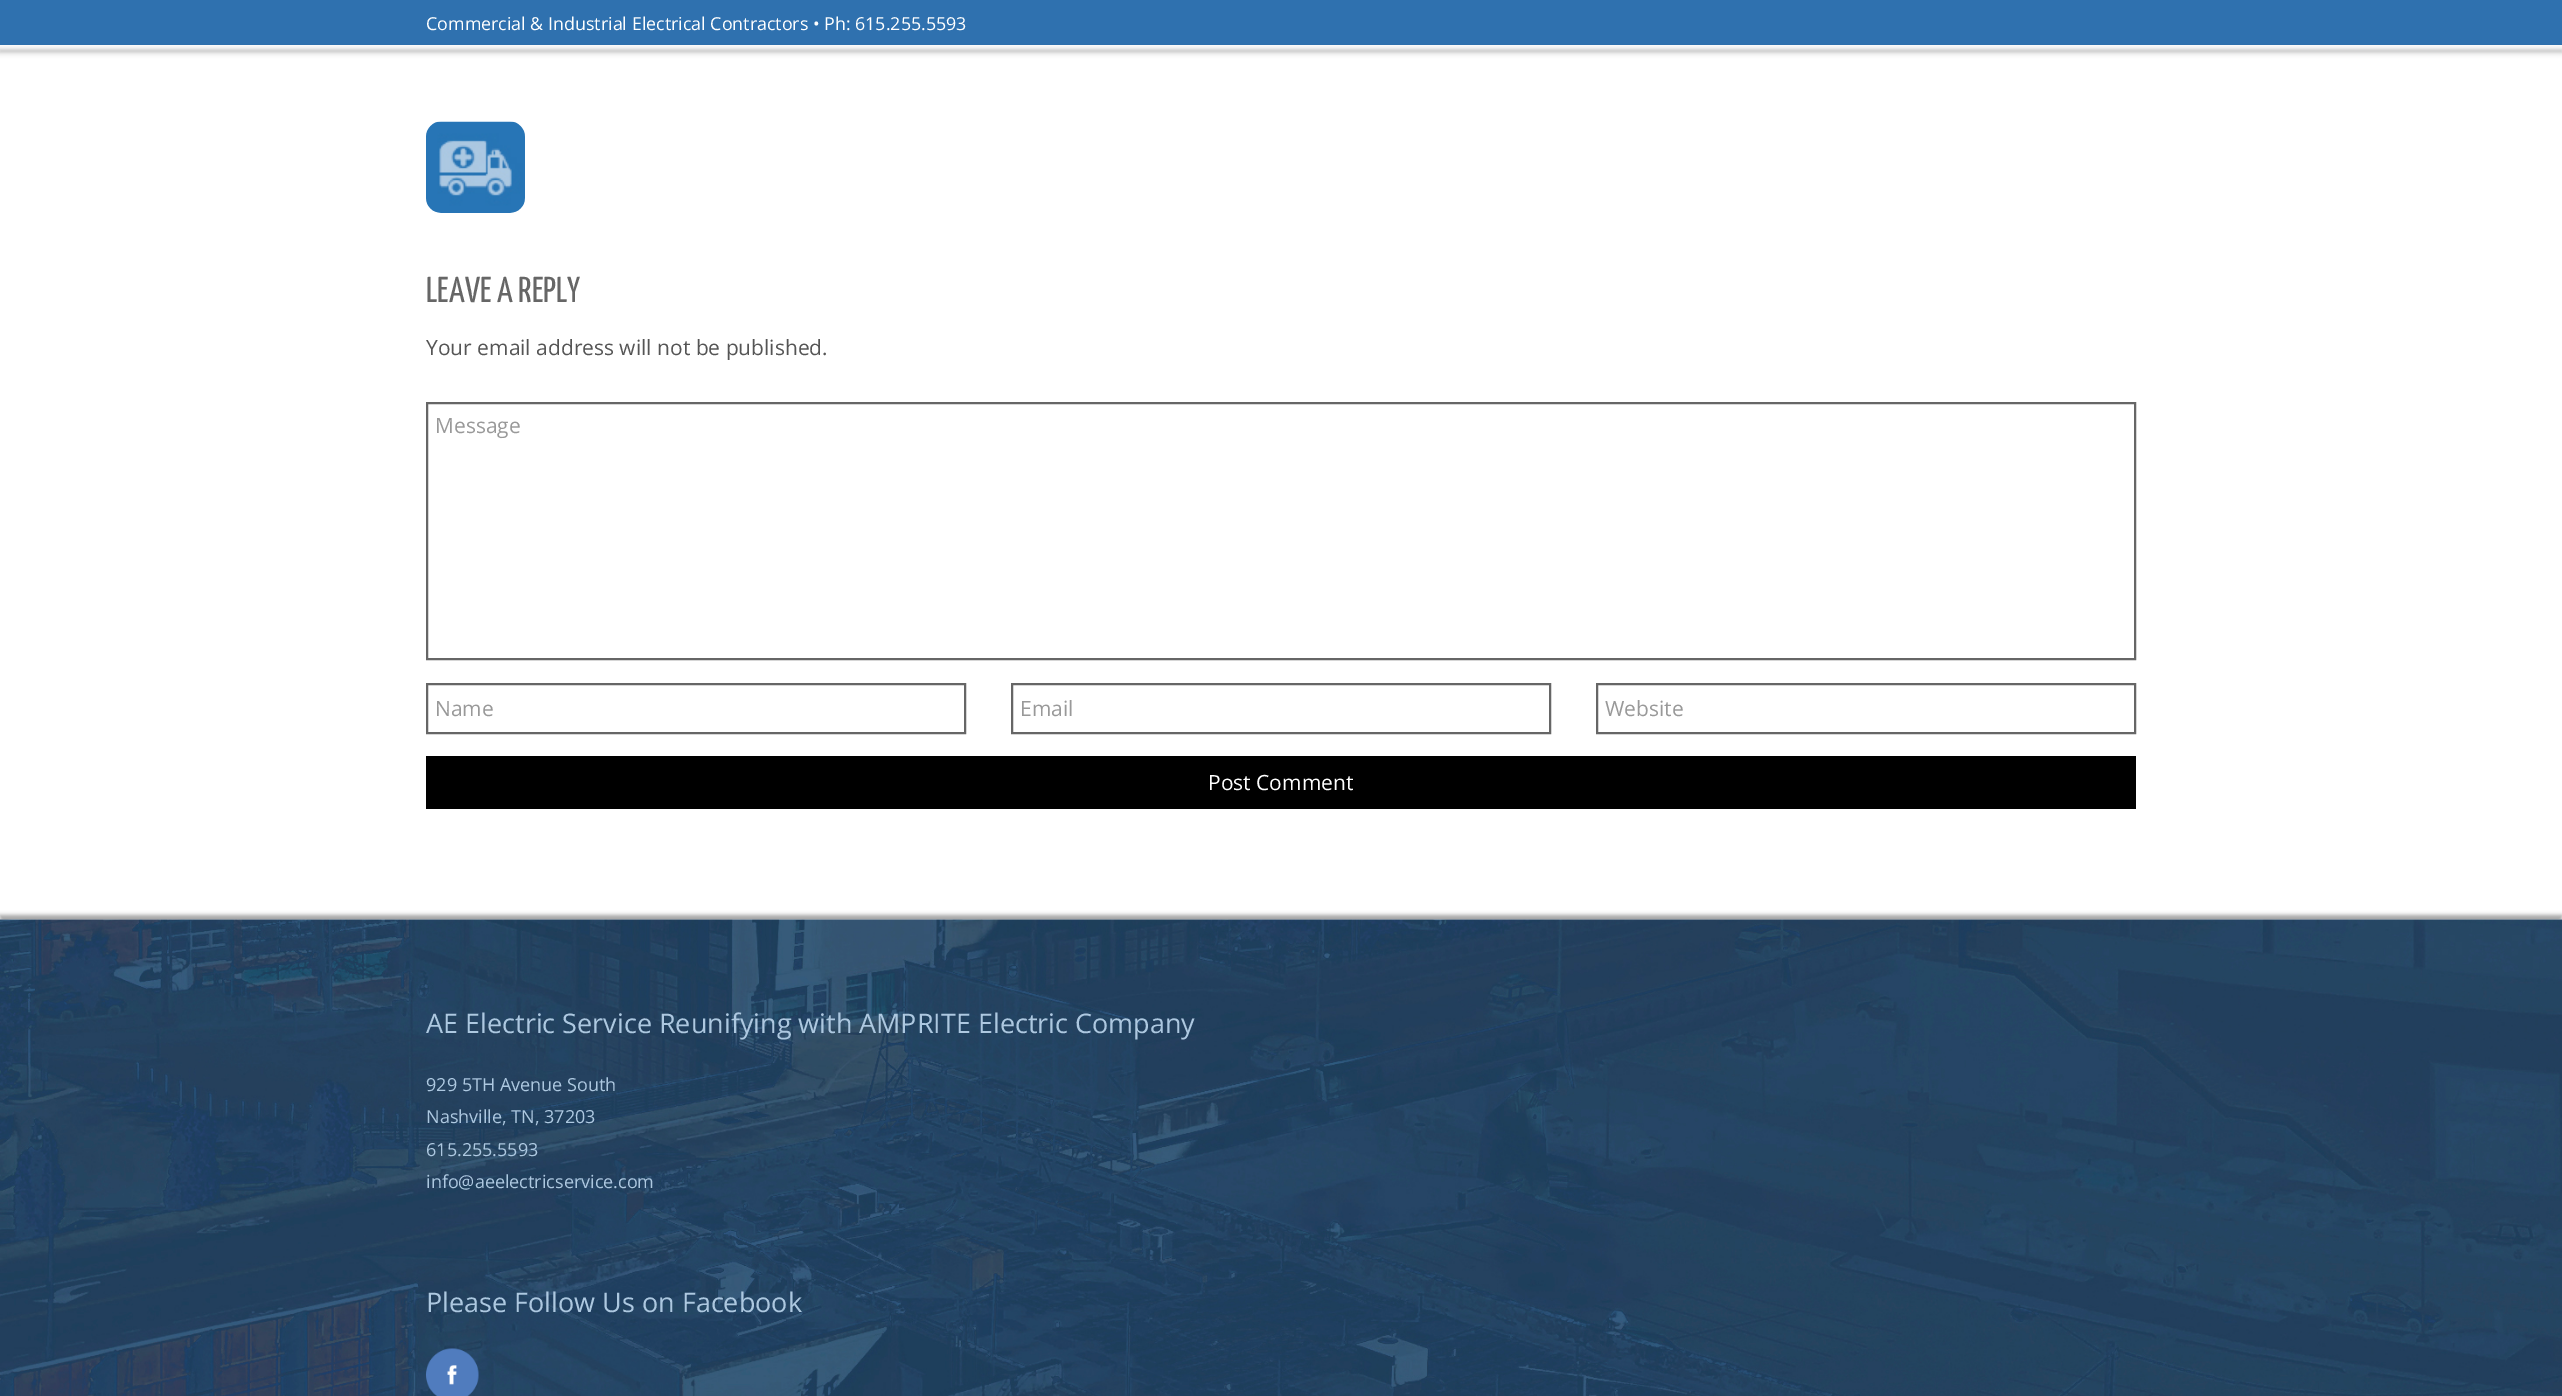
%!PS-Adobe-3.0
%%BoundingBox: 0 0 2562 1396
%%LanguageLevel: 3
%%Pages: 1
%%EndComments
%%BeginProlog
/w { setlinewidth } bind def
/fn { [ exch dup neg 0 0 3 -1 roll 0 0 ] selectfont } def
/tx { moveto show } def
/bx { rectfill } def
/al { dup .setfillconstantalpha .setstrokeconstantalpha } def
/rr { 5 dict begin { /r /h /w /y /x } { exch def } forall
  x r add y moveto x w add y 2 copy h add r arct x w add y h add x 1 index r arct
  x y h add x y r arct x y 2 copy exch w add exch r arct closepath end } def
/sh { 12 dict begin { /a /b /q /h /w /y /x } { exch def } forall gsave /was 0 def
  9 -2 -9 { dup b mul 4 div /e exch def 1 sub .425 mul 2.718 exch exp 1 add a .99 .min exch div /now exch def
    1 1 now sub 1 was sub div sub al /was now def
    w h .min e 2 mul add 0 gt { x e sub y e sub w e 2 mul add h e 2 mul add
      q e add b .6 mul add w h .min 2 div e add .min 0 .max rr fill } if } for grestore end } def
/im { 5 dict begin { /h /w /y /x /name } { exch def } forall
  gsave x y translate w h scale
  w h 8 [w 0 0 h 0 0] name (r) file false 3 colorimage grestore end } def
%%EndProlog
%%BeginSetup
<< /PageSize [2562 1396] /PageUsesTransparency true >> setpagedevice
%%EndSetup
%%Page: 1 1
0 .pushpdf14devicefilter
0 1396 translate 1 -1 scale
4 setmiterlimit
1 setgray
0 0 2562 1396 bx
0.184 0.443 0.686 setrgbcolor
0 0 2562 45 bx
/OpenSans-Regular 17.85 fn
1 setgray
(Commercial & Industrial Electrical Contractors • Ph:) 426 30 tx
(615.255.5593) 855 30 tx
0 setgray
0 50 2562 2 0 3 0.3 sh
(image0.raw) 426 121 99 92 im
/YanoneKaffeesatz-Regular 36 fn
0.4 setgray
(LEAVE A REPLY) 426 302 tx
/OpenSans-Regular 21 fn
0.333 setgray
(Your email address will not be published.) 426 355 tx
0.4 setgray
2 w
427 403 1708 256 rectstroke
0.6 setgray
(Message) 435 433 tx
0.4 setgray
427 684 538 49 rectstroke
0.6 setgray
(Name) 435 716 tx
0.4 setgray
1012 684 538 49 rectstroke
0.6 setgray
(Email) 1020 716 tx
0.4 setgray
1597 684 538 49 rectstroke
0.6 setgray
(Website) 1605 716 tx
0 setgray
426 756 1710 53 bx
1 setgray
(Post Comment) 1208 790 tx
0 setgray
0 915 2562 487 0 2 0.35 sh
(image1.raw) 0 919 2562 477 im
/OpenSans-Regular 27 fn
0.678 0.784 0.878 setrgbcolor
(AE Electric Service Reunifying with AMPRITE Electric Company) 426 1033 tx
/OpenSans-Regular 18 fn
(929 5TH Avenue South) 426 1091 tx
(Nashville, TN, 37203) 426 1123 tx
(615.255.5593) 426 1156 tx
(info@aeelectricservice.com) 426 1188 tx
/OpenSans-Regular 27 fn
(Please Follow Us on Facebook) 426 1312 tx
(image2.raw) 426 1348 53 48 im
.poppdf14devicefilter showpage
%%EOF
